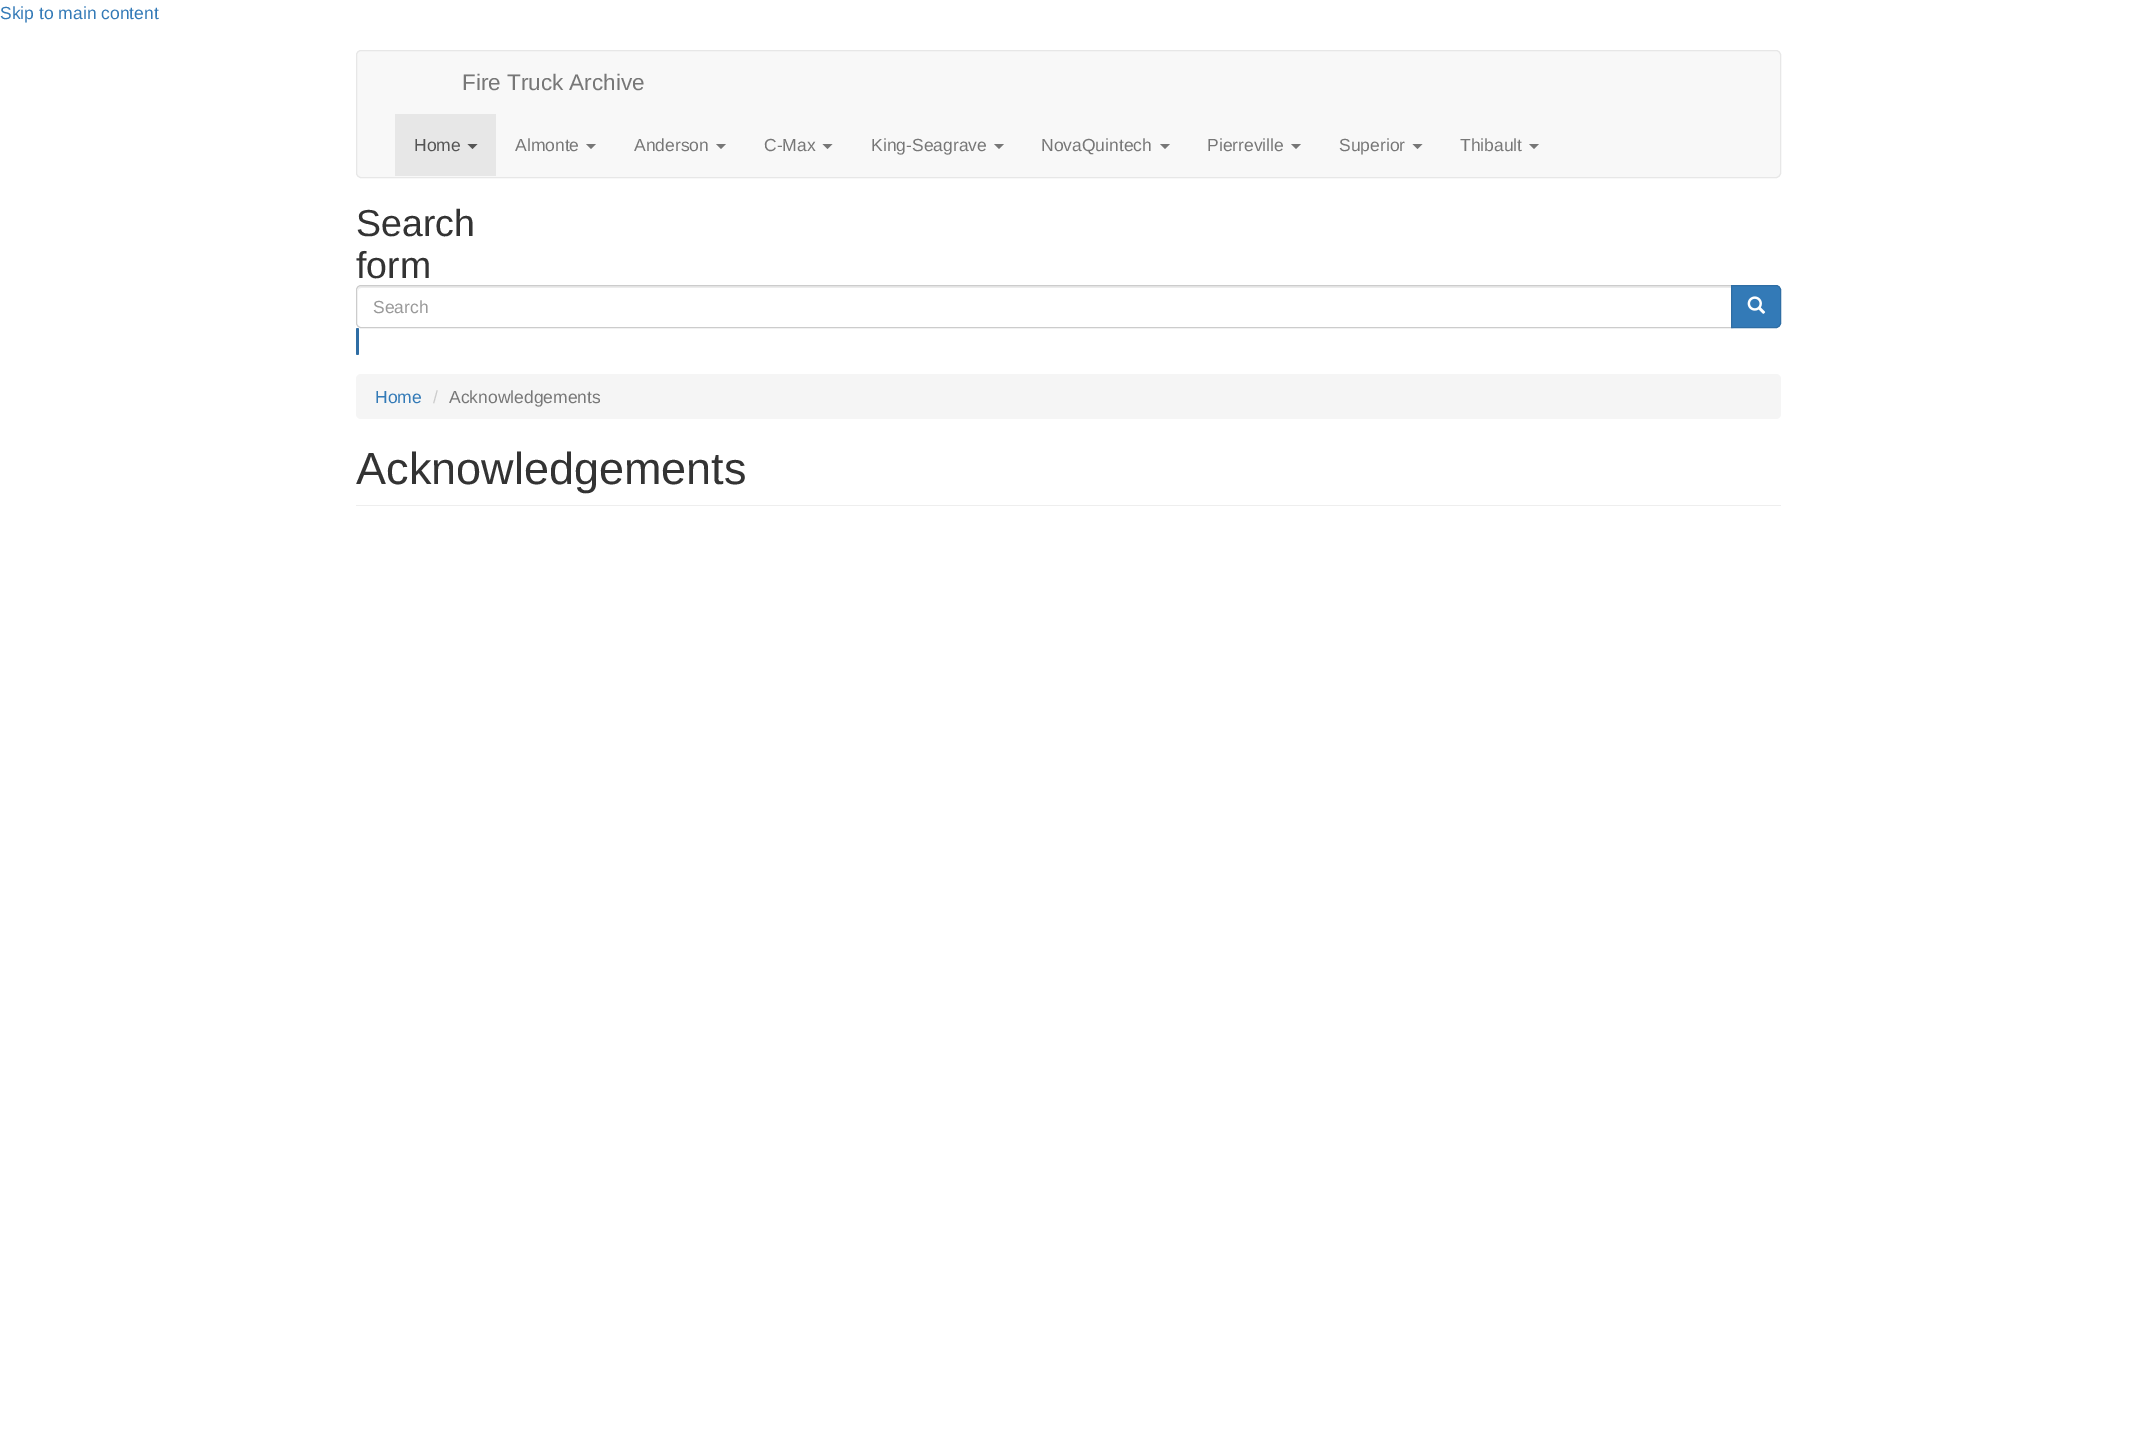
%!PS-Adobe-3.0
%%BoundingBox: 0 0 2137 1455
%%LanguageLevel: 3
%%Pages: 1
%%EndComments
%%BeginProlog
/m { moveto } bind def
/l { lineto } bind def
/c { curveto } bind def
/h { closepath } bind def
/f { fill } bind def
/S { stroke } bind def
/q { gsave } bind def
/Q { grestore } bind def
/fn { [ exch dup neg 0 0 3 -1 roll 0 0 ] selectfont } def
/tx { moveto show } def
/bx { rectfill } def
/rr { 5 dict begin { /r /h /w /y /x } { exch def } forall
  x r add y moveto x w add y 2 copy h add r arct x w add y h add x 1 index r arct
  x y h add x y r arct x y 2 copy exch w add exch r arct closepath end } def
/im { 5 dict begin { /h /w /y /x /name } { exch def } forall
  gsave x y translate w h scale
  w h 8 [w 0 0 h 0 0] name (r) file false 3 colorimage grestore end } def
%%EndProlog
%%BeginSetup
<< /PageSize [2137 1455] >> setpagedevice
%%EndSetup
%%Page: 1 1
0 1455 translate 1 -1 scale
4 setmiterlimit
1 setgray
0 0 2137 1455 bx
/LiberationSans-Regular 17.5 fn
0.2 0.478 0.718 setrgbcolor
(Skip to main content) 0 19 tx
0.973 setgray
356.5 50.5 1424 127 4.5 rr q f Q
0.906 setgray
S
/LiberationSans-Regular 22.5 fn
0.467 setgray
(Fire Truck Archive) 462 90 tx
0.906 setgray
395 114 101 62 bx
/LiberationSans-Regular 17.5 fn
0.333 setgray
(Home) 414 151 tx
467.5 144 m 477.5 144 l 472.5 149 l h f
0.467 setgray
(Almonte) 515 151 tx
586 144 m 596 144 l 591 149 l h f
(Anderson) 634 151 tx
716 144 m 726 144 l 721 149 l h f
(C-Max) 764 151 tx
822.5 144 m 832.5 144 l 827.5 149 l h f
(King-Seagrave) 871 151 tx
994 144 m 1004 144 l 999 149 l h f
(NovaQuintech) 1041 151 tx
1160 144 m 1170 144 l 1165 149 l h f
(Pierreville) 1207 151 tx
1291 144 m 1301 144 l 1296 149 l h f
(Superior) 1339 151 tx
1412.5 144 m 1422.5 144 l 1417.5 149 l h f
(Thibault) 1460 151 tx
1529 144 m 1539 144 l 1534 149 l h f
/LiberationSans-Regular 37.5 fn
0.2 setgray
(Search) 356 236 tx
(form) 356 278 tx
0.925 setgray
361 288 m 1731 288 l 1731 286 l 362 286 l 359 286 358 288 358 291 c 358 289 359 288 361 288 c h f
0.8 setgray
361 285.5 m 1732.5 285.5 l 1732.5 327.5 l 361 327.5 l 358.5 327.5 356.5 325.5 356.5 323 c 356.5 290 l 356.5 287.5 358.5 285.5 361 285.5 c h S
/LiberationSans-Regular 17.5 fn
0.6 setgray
(Search) 373 313 tx
0.2 0.478 0.718 setrgbcolor
1731.5 285.5 m 1776 285.5 l 1778.5 285.5 1780.5 287.5 1780.5 290 c 1780.5 323 l 1780.5 325.5 1778.5 327.5 1776 327.5 c 1731.5 327.5 l h q f Q
0.18 0.427 0.643 setrgbcolor
S
(image0.raw) 1747 296 19 18 im
356 328 3 27 1.5 rr f
0.961 setgray
356 374 1425 45 5 rr f
0.2 0.478 0.718 setrgbcolor
(Home) 375 403 tx
0.8 setgray
(/) 433 403 tx
0.467 setgray
(Acknowledgements) 449 403 tx
0.933 setgray
356 505 1425 1 bx
/LiberationSans-Regular 45 fn
0.2 setgray
(Acknowledgements) 356 484 tx
showpage
%%EOF
